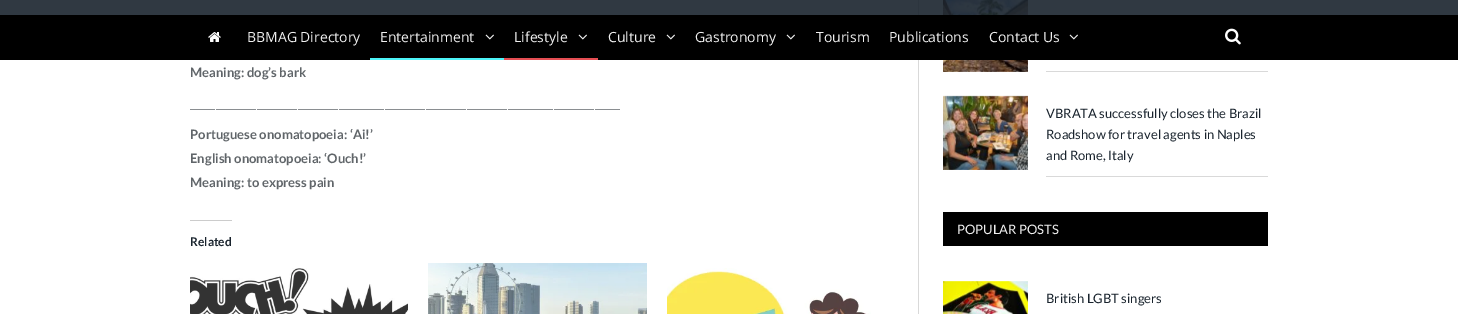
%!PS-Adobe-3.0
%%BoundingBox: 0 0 1458 314
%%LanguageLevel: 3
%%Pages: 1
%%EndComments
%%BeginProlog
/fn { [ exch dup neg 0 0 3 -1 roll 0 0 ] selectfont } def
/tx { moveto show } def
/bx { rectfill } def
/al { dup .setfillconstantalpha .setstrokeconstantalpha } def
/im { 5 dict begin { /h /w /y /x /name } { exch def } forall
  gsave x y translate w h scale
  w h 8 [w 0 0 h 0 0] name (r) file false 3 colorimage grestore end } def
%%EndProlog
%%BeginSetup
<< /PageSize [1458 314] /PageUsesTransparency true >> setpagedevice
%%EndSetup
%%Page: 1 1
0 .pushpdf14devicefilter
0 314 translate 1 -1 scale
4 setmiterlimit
1 setgray
0 0 1458 314 bx
0.851 setgray
918 0 1 314 bx
(image6.raw) 943 0 85 72 im
0.9 al
0.098 0.137 0.176 setrgbcolor
0 0 1458 15 bx
1 al
0 setgray
0 15 1458 45 bx
(image0.raw) 208 32 13 10 im
/OpenSans-Regular 14 fn
0.937 setgray
(BBMAG Directory) 247 42 tx
0.302 0.957 0.976 setrgbcolor
370 58 134 2 bx
0.937 setgray
(Entertainment) 380 42 tx
(image1.raw) 485 34 9 6 im
0.898 0.306 0.325 setrgbcolor
504 58 94 2 bx
0.937 setgray
(Lifestyle) 514 42 tx
(image1.raw) 578 34 9 6 im
(Culture) 608 42 tx
(image1.raw) 666 34 9 6 im
(Gastronomy) 695 42 tx
(image1.raw) 786 34 9 6 im
(Tourism) 816 42 tx
(Publications) 889 42 tx
(Contact Us) 989 42 tx
(image1.raw) 1069 34 9 6 im
(image2.raw) 1225 28 16 17 im
/Lato-Bold 13 fn
0.376 0.396 0.412 setrgbcolor
(Meaning: dog’s bark) 190 77 tx
/Lato-Regular 13 fn
(____________________________________________________________________________________) 190 108 tx
/Lato-Bold 13 fn
(Portuguese onomatopoeia: ‘Ai!’) 190 139 tx
(English onomatopoeia: ‘Ouch!’) 190 163 tx
(Meaning: to express pain) 190 187 tx
0.8 setgray
190 220 42 1 bx
/Lato-Bold 12 fn
0.098 0.137 0.176 setrgbcolor
(Related) 190 246 tx
(image3.raw) 190 268 218 46 im
(image4.raw) 428 263 219 51 im
(image5.raw) 667 268 204 46 im
0.851 setgray
1046 71 222 1 bx
(image7.raw) 943 95 85 75 im
1046 176 222 1 bx
/Lato-Regular 13 fn
0.098 0.137 0.176 setrgbcolor
(VBRATA successfully closes the Brazil) 1046 118 tx
(Roadshow for travel agents in Naples) 1046 139 tx
(and Rome, Italy) 1046 160 tx
0 setgray
943 212 325 34 bx
0.937 setgray
(POPULAR POSTS) 957 234 tx
(image8.raw) 943 281 85 33 im
0.098 0.137 0.176 setrgbcolor
(British LGBT singers) 1046 303 tx
.poppdf14devicefilter showpage
%%EOF
